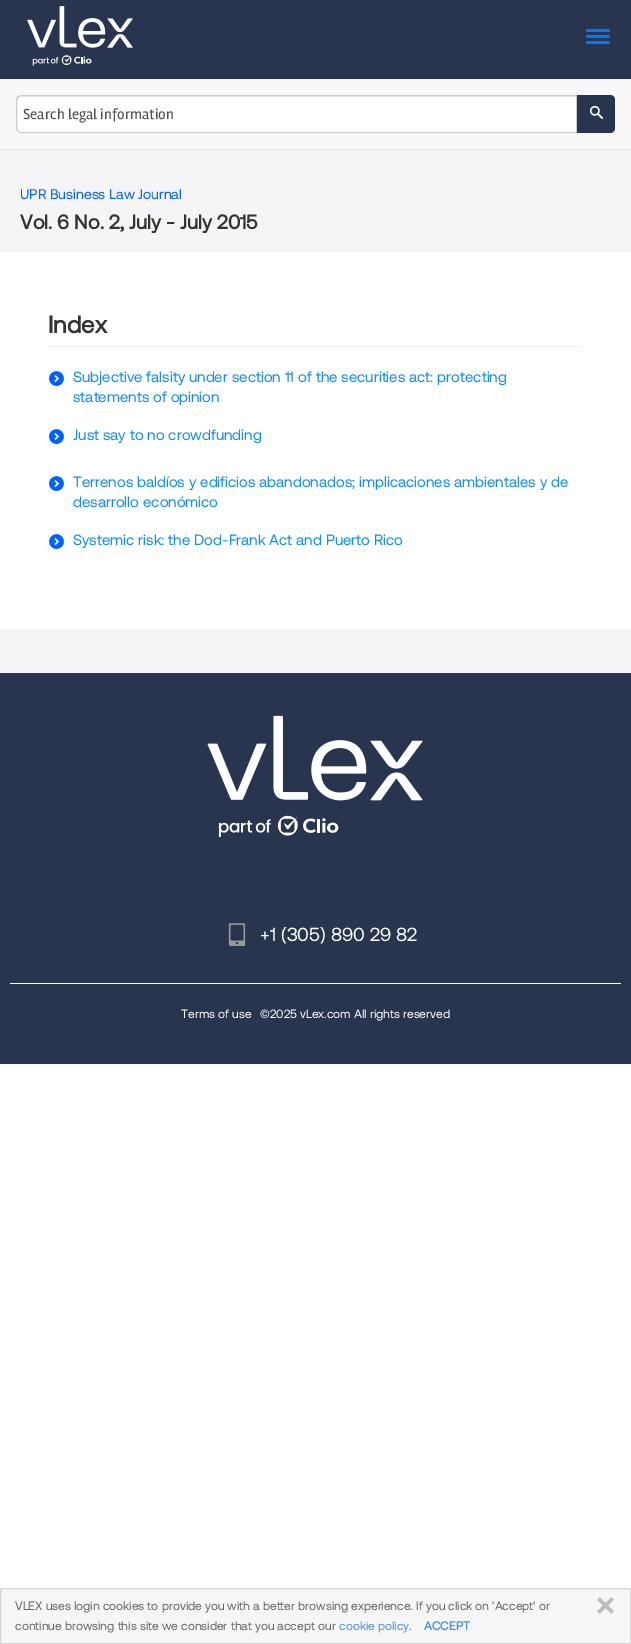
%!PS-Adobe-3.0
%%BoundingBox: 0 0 631 1644
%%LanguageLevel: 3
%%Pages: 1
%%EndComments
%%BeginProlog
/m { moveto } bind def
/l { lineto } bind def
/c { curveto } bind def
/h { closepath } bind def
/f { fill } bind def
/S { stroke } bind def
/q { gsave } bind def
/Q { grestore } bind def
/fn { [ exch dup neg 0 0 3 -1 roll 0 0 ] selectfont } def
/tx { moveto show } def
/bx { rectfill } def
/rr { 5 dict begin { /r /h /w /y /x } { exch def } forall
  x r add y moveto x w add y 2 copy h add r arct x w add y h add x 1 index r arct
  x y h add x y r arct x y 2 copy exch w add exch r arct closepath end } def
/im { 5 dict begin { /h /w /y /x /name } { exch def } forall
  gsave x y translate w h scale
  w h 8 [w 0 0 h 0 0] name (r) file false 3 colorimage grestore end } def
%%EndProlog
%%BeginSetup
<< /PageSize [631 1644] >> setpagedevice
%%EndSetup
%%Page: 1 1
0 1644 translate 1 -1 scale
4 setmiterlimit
1 setgray
0 0 631 1644 bx
0.161 0.208 0.306 setrgbcolor
0 0 631 79 bx
(image0.raw) 27 6 106 60 im
0 0.467 1 setrgbcolor
586 35 24 3 1.5 rr f
586 29 24 3 1.5 rr f
586 41 24 3 1.5 rr f
0.976 0.969 0.969 setrgbcolor
0 79 631 70 bx
0.882 setgray
0 149 631 1 bx
1 setgray
21 95 m 577 95 l 577 133 l 21 133 l 18 133 16 131 16 128 c 16 100 l 16 97 18 95 21 95 c h f
0.925 setgray
21 97 m 576 97 l 576 96 l 21 96 l 18 96 17 98 17 101 c 17 99 19 97 21 97 c h f
0.8 setgray
21 95.5 m 576.5 95.5 l 576.5 132.5 l 21 132.5 l 18.5 132.5 16.5 130.5 16.5 128 c 16.5 100 l 16.5 97.5 18.5 95.5 21 95.5 c h S
/Rambla-Regular 15 fn
0.314 setgray
(Search legal information) 23 119 tx
0.161 0.208 0.306 setrgbcolor
577 95 m 610 95 l 613 95 615 97 615 100 c 615 128 l 615 131 613 133 610 133 c 577 133 l h f
(image1.raw) 589 105 14 14 im
0.961 0.961 0.969 setrgbcolor
0 150 631 523 bx
/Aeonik-Regular 14 fn
0.004 0.38 1 setrgbcolor
(UPR Business Law Journal) 20 199 tx
/Aeonik-Bold 20 fn
0.2 setgray
(Vol. 6 No. 2, July - July 2015) 20 229 tx
1 setgray
0 252 631 377 bx
/Aeonik-Bold 24 fn
0.2 setgray
(Index) 48 333 tx
0.941 0.941 0.929 setrgbcolor
48 346 535 1 bx
(image2.raw) 49 371 15 15 im
/Aeonik-Regular 15 fn
0.075 0.553 0.941 setrgbcolor
(Subjective falsity under section 11 of the securities act: protecting) 73 382 tx
(statements of opinion) 73 402 tx
(image2.raw) 49 429 15 15 im
(Just say to no crowdfunding) 73 440 tx
(image2.raw) 49 476 15 15 im
(Terrenos baldíos y edificios abandonados; implicaciones ambientales y de) 73 487 tx
(desarrollo económico) 73 507 tx
(image2.raw) 49 534 15 15 im
(Systemic risk: the Dod-Frank Act and Puerto Rico) 73 545 tx
0.161 0.208 0.306 setrgbcolor
0 673 631 391 bx
1 setgray
10 983 611 1 bx
(image3.raw) 207 715 216 122 im
(image4.raw) 228 923 18 23 im
/Aeonik-Regular 19 fn
(+1 \(305\) 890 29 82) 260 941 tx
/Aeonik-Regular 12 fn
(Terms of use) 181 1018 tx
(©2025 vLex.com All rights reserved) 260 1018 tx
0.965 setgray
0.5 1588.5 630 55 1.5 rr q f Q
0.835 setgray
S
0.4 setgray
(VLEX uses login cookies to provide you with a better browsing experience. If you click on 'Accept' or) 15 1610 tx
(continue browsing this site we consider that you accept our) 15 1630 tx
0.29 0.565 0.886 setrgbcolor
(cookie policy) 339 1630 tx
0.4 setgray
(.) 409 1630 tx
/Aeonik-Bold 12 fn
0.29 0.565 0.886 setrgbcolor
(ACCEPT) 424 1630 tx
(image5.raw) 597 1597 17 17 im
showpage
%%EOF
